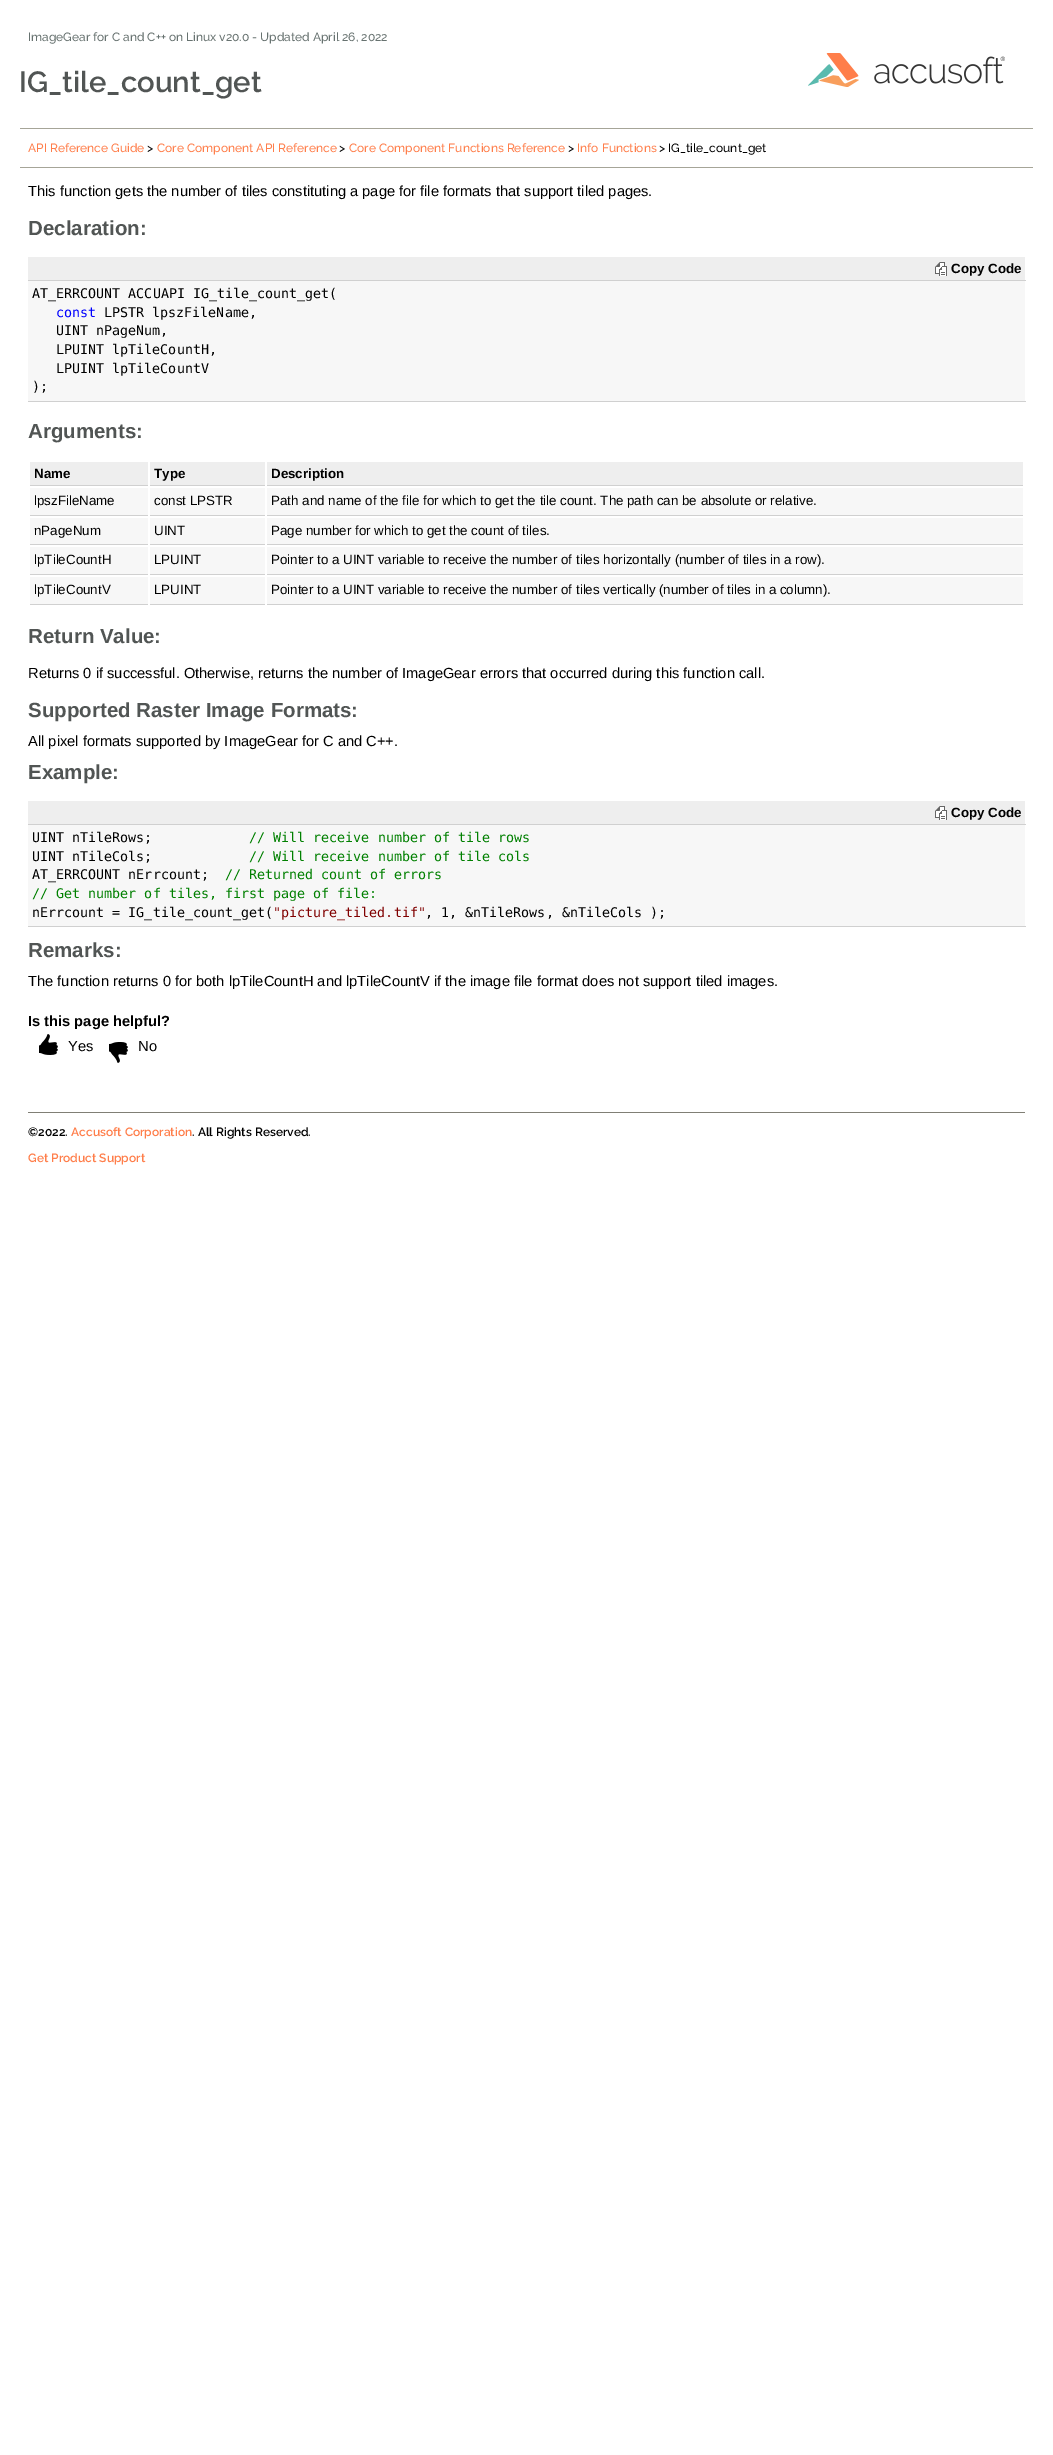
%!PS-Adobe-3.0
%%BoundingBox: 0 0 1053 2455
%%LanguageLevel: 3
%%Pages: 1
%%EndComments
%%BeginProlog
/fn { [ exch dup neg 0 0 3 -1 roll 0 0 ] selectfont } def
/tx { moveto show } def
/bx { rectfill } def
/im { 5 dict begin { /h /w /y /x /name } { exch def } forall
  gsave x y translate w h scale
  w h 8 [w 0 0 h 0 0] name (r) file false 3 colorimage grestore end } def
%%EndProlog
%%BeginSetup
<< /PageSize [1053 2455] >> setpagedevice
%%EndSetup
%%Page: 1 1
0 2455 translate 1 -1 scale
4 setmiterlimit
1 setgray
0 0 1053 2455 bx
/Raleway-Medium 12 fn
0.404 0.447 0.439 setrgbcolor
(ImageGear for C and C++ on Linux v20.0 - Updated April 26, 2022) 28 41 tx
(image0.raw) 808 53 197 34 im
/Raleway-SemiBold 29.25 fn
0.318 0.333 0.329 setrgbcolor
(IG_tile_count_get) 19 92 tx
0.651 0.647 0.596 setrgbcolor
20 128 1013 1 bx
20 167 1013 1 bx
/Raleway-Medium 12 fn
1 0.494 0.29 setrgbcolor
(API Reference Guide) 28 152 tx
0 setgray
(>) 147 152 tx
1 0.494 0.29 setrgbcolor
(Core Component API Reference) 157 152 tx
0 setgray
(>) 339 152 tx
1 0.494 0.29 setrgbcolor
(Core Component Functions Reference) 349 152 tx
0 setgray
(>) 568 152 tx
1 0.494 0.29 setrgbcolor
(Info Functions) 577 152 tx
0 setgray
(> IG_tile_count_get) 659 152 tx
/LiberationSans-Regular 14.67 fn
(This function gets the number of tiles constituting a page for file formats that support tiled pages.) 28 196 tx
/LiberationSans-Bold 20.5 fn
0.318 0.333 0.329 setrgbcolor
(Declaration:) 28 235 tx
0.933 setgray
28 257 997 23 bx
0.816 setgray
28 280 998 1 bx
(image1.raw) 935 262 12 14 im
/LiberationSans-Bold 13.35 fn
0 setgray
(Copy Code) 951 273 tx
0.969 setgray
28 281 997 120 bx
0.816 setgray
28 401 998 1 bx
/DejaVuSansMono-Regular 13.35 fn
0 setgray
(AT_ERRCOUNT ACCUAPI IG_tile_count_get\() 32 298 tx
0 0 1 setrgbcolor
(const) 56 317 tx
0 setgray
(LPSTR lpszFileName,) 104 317 tx
(UINT nPageNum,) 56 335 tx
(LPUINT lpTileCountH,) 56 354 tx
(LPUINT lpTileCountV) 56 373 tx
(\);) 32 391 tx
/LiberationSans-Bold 20.5 fn
0.318 0.333 0.329 setrgbcolor
(Arguments:) 28 438 tx
0.933 setgray
30 462 118 23 bx
0.816 setgray
30 485 118 1 bx
/LiberationSans-Bold 13.35 fn
0 setgray
(Name) 34 478 tx
0.933 setgray
150 462 115 23 bx
0.816 setgray
150 485 115 1 bx
0 setgray
(Type) 154 478 tx
0.933 setgray
267 462 756 23 bx
0.816 setgray
267 485 756 1 bx
0 setgray
(Description) 271 478 tx
0.969 setgray
30 488 118 27 bx
0.816 setgray
30 515 118 1 bx
/LiberationSans-Regular 13.35 fn
0 setgray
(lpszFileName) 34 505 tx
0.969 setgray
150 488 115 27 bx
0.816 setgray
150 515 115 1 bx
0 setgray
(const LPSTR) 154 505 tx
0.969 setgray
267 488 756 27 bx
0.816 setgray
267 515 756 1 bx
0 setgray
(Path and name of the file for which to get the tile count. The path can be absolute or relative.) 271 505 tx
0.969 setgray
30 518 118 26 bx
0.816 setgray
30 544 118 1 bx
0 setgray
(nPageNum) 34 535 tx
0.969 setgray
150 518 115 26 bx
0.816 setgray
150 544 115 1 bx
0 setgray
(UINT) 154 535 tx
0.969 setgray
267 518 756 26 bx
0.816 setgray
267 544 756 1 bx
0 setgray
(Page number for which to get the count of tiles.) 271 535 tx
0.969 setgray
30 547 118 27 bx
0.816 setgray
30 574 118 1 bx
0 setgray
(lpTileCountH) 34 564 tx
0.969 setgray
150 547 115 27 bx
0.816 setgray
150 574 115 1 bx
0 setgray
(LPUINT) 154 564 tx
0.969 setgray
267 547 756 27 bx
0.816 setgray
267 574 756 1 bx
0 setgray
(Pointer to a UINT variable to receive the number of tiles horizontally \(number of tiles in a row\).) 271 564 tx
0.969 setgray
30 577 118 27 bx
0.816 setgray
30 604 118 1 bx
0 setgray
(lpTileCountV) 34 594 tx
0.969 setgray
150 577 115 27 bx
0.816 setgray
150 604 115 1 bx
0 setgray
(LPUINT) 154 594 tx
0.969 setgray
267 577 756 27 bx
0.816 setgray
267 604 756 1 bx
0 setgray
(Pointer to a UINT variable to receive the number of tiles vertically \(number of tiles in a column\).) 271 594 tx
/LiberationSans-Bold 20.5 fn
0.318 0.333 0.329 setrgbcolor
(Return Value:) 28 643 tx
/LiberationSans-Regular 14.67 fn
0 setgray
(Returns 0 if successful. Otherwise, returns the number of ImageGear errors that occurred during this function call.) 28 678 tx
/LiberationSans-Bold 20.5 fn
0.318 0.333 0.329 setrgbcolor
(Supported Raster Image Formats:) 28 717 tx
/LiberationSans-Regular 14.67 fn
0 setgray
(All pixel formats supported by ImageGear for C and C++.) 28 746 tx
/LiberationSans-Bold 20.5 fn
0.318 0.333 0.329 setrgbcolor
(Example:) 28 779 tx
0.933 setgray
28 801 997 23 bx
0.816 setgray
28 824 998 1 bx
(image1.raw) 935 806 12 14 im
/LiberationSans-Bold 13.35 fn
0 setgray
(Copy Code) 951 817 tx
0.969 setgray
28 825 997 101 bx
0.816 setgray
28 926 998 1 bx
/DejaVuSansMono-Regular 13.35 fn
0 setgray
(UINT nTileRows;) 32 842 tx
0 0.502 0 setrgbcolor
(// Will receive number of tile rows) 249 842 tx
0 setgray
(UINT nTileCols;) 32 861 tx
0 0.502 0 setrgbcolor
(// Will receive number of tile cols) 249 861 tx
0 setgray
(AT_ERRCOUNT nErrcount;) 32 879 tx
0 0.502 0 setrgbcolor
(// Returned count of errors) 225 879 tx
(// Get number of tiles, first page of file:) 32 898 tx
0 setgray
(nErrcount = IG_tile_count_get\() 32 917 tx
0.502 0 0 setrgbcolor
("picture_tiled.tif") 273 917 tx
0 setgray
(, 1, &nTileRows, &nTileCols \);) 425 917 tx
/LiberationSans-Bold 20.5 fn
0.318 0.333 0.329 setrgbcolor
(Remarks:) 28 957 tx
/LiberationSans-Regular 14.67 fn
0 setgray
(The function returns 0 for both lpTileCountH and lpTileCountV if the image file format does not support tiled images.) 28 986 tx
/LiberationSans-Bold 14.67 fn
(Is this page helpful?) 28 1026 tx
(image2.raw) 39 1034 19 21 im
/LiberationSans-Regular 14.67 fn
(Yes) 68 1051 tx
(image3.raw) 109 1042 19 21 im
(No) 138 1051 tx
0.502 0.498 0.459 setrgbcolor
28 1112 997 1 bx
/Raleway-SemiBold 12 fn
0 setgray
(©2022.) 28 1136 tx
1 0.494 0.29 setrgbcolor
(Accusoft Corporation) 71 1136 tx
0 setgray
(. All Rights Reserved.) 192 1136 tx
1 0.494 0.29 setrgbcolor
(Get Product Support) 28 1162 tx
showpage
%%EOF
